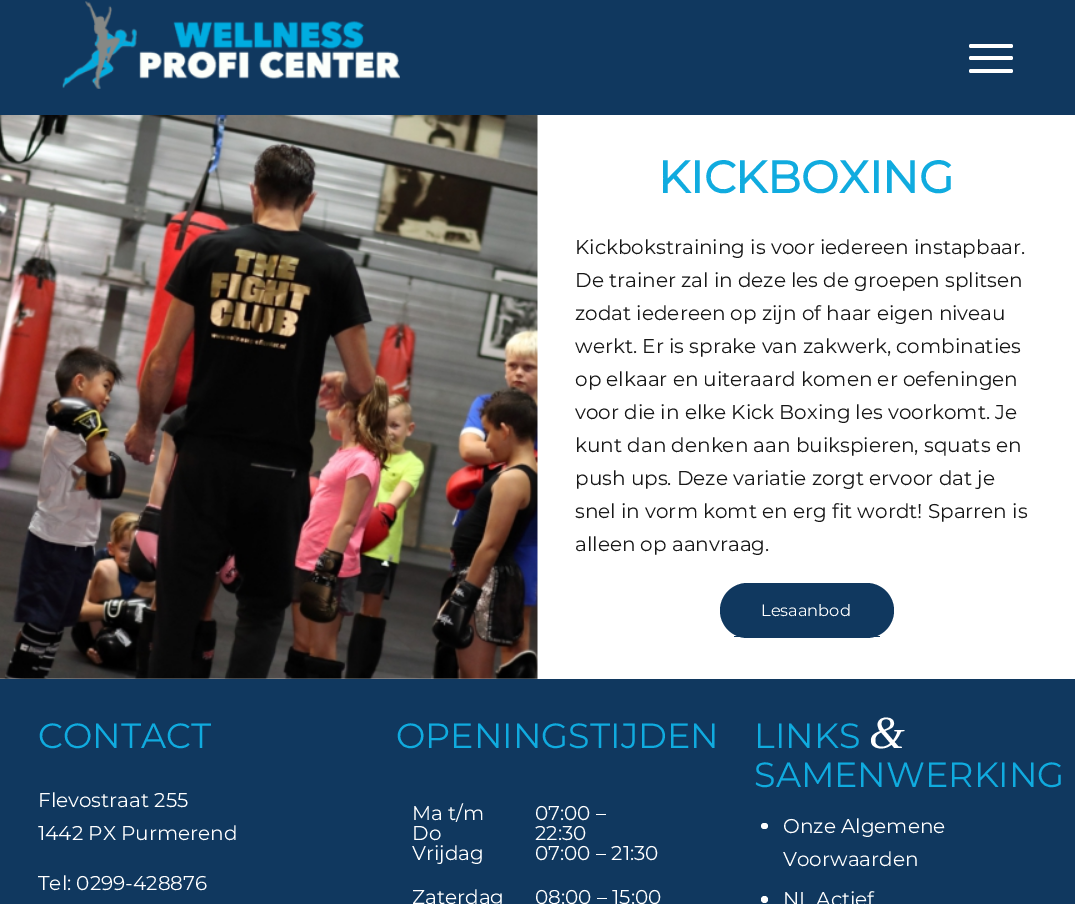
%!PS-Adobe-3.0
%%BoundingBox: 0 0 1075 904
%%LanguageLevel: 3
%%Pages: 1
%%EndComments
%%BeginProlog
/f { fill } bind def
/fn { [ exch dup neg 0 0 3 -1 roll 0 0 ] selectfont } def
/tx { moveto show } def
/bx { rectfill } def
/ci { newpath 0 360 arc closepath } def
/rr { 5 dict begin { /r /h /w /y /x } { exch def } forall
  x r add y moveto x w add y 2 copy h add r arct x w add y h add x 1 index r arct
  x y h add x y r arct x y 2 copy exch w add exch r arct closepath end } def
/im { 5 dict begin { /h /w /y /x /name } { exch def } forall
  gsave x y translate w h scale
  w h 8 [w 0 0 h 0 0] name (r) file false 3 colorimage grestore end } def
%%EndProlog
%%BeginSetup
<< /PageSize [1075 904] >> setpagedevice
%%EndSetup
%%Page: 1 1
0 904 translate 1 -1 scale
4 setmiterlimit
0.063 0.22 0.373 setrgbcolor
0 0 1075 904 bx
(image0.raw) 62 1 338 88 im
1 setgray
969 56 44 4 2 rr f
969 44 44 4 2 rr f
969 69 44 4 2 rr f
0 115 1075 564 bx
(image1.raw) 0 115 538 564 im
/Montserrat-Bold 45 fn
0.063 0.671 0.875 setrgbcolor
(KICKBOXING) 658 193 tx
/Montserrat-Thin 20 fn
0.094 setgray
(Kickbokstraining is voor iedereen instapbaar.) 575 254 tx
(De trainer zal in deze les de groepen splitsen) 575 287 tx
(zodat iedereen op zijn of haar eigen niveau) 575 320 tx
(werkt. Er is sprake van zakwerk, combinaties) 575 353 tx
(op elkaar en uiteraard komen er oefeningen) 575 386 tx
(voor die in elke Kick Boxing les voorkomt. Je) 575 419 tx
(kunt dan denken aan buikspieren, squats en) 575 452 tx
(push ups. Deze variatie zorgt ervoor dat je) 575 485 tx
(snel in vorm komt en erg fit wordt! Sparren is) 575 518 tx
(alleen op aanvraag.) 575 551 tx
0.063 0.22 0.373 setrgbcolor
720 583 174 55 27.5 rr f
734 636 146 1 bx
/Montserrat-Thin 16.25 fn
1 setgray
(Lesaanbod) 761 616 tx
/Montserrat-Thin 35 fn
0.063 0.671 0.875 setrgbcolor
(CONTACT) 38 748 tx
/Montserrat-Thin 20 fn
1 setgray
(Flevostraat 255) 38 807 tx
(1442 PX Purmerend) 38 840 tx
(Tel: 0299-428876) 38 890 tx
/Montserrat-Thin 35 fn
0.063 0.671 0.875 setrgbcolor
(OPENINGSTIJDEN) 396 748 tx
/Montserrat-Thin 20 fn
1 setgray
(Ma t/m) 412 820 tx
(Do) 412 840 tx
(Vrijdag) 412 860 tx
(07:00 –) 535 820 tx
(22:30) 535 840 tx
(07:00 – 21:30) 535 860 tx
(Zaterdag) 412 904 tx
(08:00 – 15:00) 535 904 tx
/Montserrat-Thin 35 fn
0.063 0.671 0.875 setrgbcolor
(LINKS) 754 748 tx
/LiberationSerif-Italic 46 fn
1 setgray
(&) 869 748 tx
/Montserrat-Thin 35 fn
0.063 0.671 0.875 setrgbcolor
(SAMENWERKING) 754 787 tx
1 setgray
761 823 7 6 3 rr f
/Montserrat-Thin 20 fn
(Onze Algemene) 783 833 tx
(Voorwaarden) 783 866 tx
764.5 899.5 3.5 ci f
(NL Actief) 783 906 tx
showpage
%%EOF
